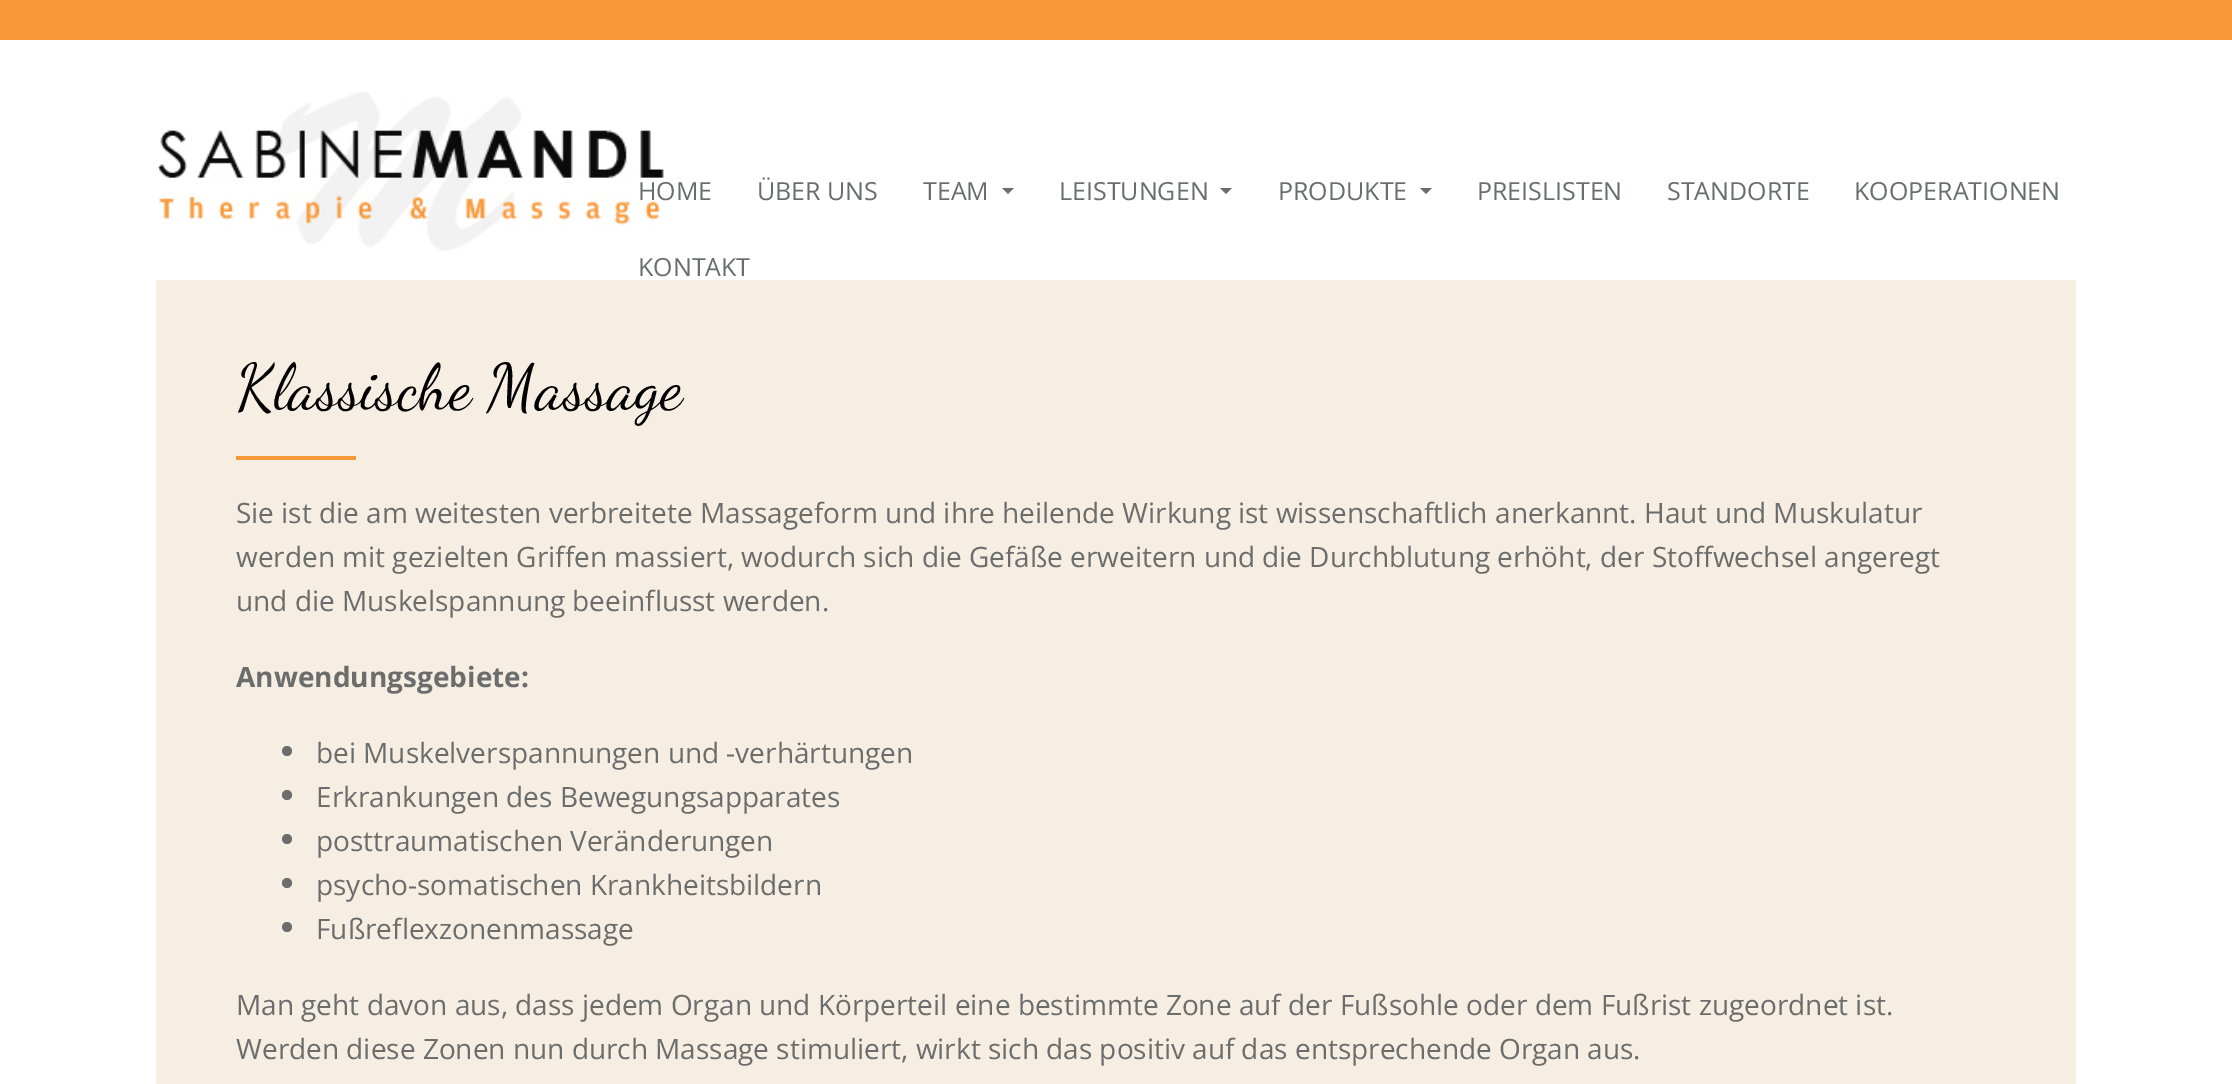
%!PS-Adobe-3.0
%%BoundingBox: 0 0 2232 1084
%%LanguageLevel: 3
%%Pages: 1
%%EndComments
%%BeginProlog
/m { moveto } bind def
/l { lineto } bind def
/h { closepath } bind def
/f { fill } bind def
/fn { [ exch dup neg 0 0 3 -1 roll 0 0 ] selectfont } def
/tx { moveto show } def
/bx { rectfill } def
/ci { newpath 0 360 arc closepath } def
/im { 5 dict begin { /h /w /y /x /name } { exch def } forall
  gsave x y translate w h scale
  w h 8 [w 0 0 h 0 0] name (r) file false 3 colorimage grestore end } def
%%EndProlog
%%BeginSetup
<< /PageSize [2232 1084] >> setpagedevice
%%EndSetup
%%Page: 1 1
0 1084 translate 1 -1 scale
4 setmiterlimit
1 setgray
0 0 2232 1084 bx
0.976 0.596 0.224 setrgbcolor
0 0 2232 40 bx
(image0.raw) 157 92 507 159 im
/OpenSans-Regular 25 fn
0.42 0.427 0.424 setrgbcolor
(HOME) 638 200 tx
(ÜBER UNS) 757 200 tx
(TEAM) 923 200 tx
1002 188 m 1014 188 l 1008 194 l h f
(LEISTUNGEN) 1059 200 tx
1220 188 m 1232 188 l 1226 194 l h f
(PRODUKTE) 1278 200 tx
1420 188 m 1432 188 l 1426 194 l h f
(PREISLISTEN) 1477 200 tx
(STANDORTE) 1667 200 tx
(KOOPERATIONEN) 1854 200 tx
(KONTAKT) 638 276 tx
0.969 0.933 0.89 setrgbcolor
156 280 1920 804 bx
/DancingScript-Regular 64 fn
0 setgray
(Klassische Massage) 236 408 tx
0.976 0.596 0.224 setrgbcolor
236 456 120 4 bx
/OpenSans-Regular 28 fn
0.42 0.427 0.424 setrgbcolor
(Sie ist die am weitesten verbreitete Massageform und ihre heilende Wirkung ist wissenschaftlich anerkannt. Haut und Muskulatur) 236 523 tx
(werden mit gezielten Griffen massiert, wodurch sich die Gefäße erweitern und die Durchblutung erhöht, der Stoffwechsel angeregt) 236 567 tx
(und die Muskelspannung beeinflusst werden.) 236 611 tx
/OpenSans-Bold 28 fn
(Anwendungsgebiete:) 236 687 tx
287 751 5 ci f
/OpenSans-Regular 28 fn
(bei Muskelverspannungen und -verhärtungen) 316 763 tx
287 795 5 ci f
(Erkrankungen des Bewegungsapparates) 316 807 tx
287 839 5 ci f
(posttraumatischen Veränderungen) 316 851 tx
287 883 5 ci f
(psycho-somatischen Krankheitsbildern) 316 895 tx
287 927 5 ci f
(Fußreflexzonenmassage) 316 939 tx
(Man geht davon aus, dass jedem Organ und Körperteil eine bestimmte Zone auf der Fußsohle oder dem Fußrist zugeordnet ist.) 236 1015 tx
(Werden diese Zonen nun durch Massage stimuliert, wirkt sich das positiv auf das entsprechende Organ aus.) 236 1059 tx
showpage
%%EOF
